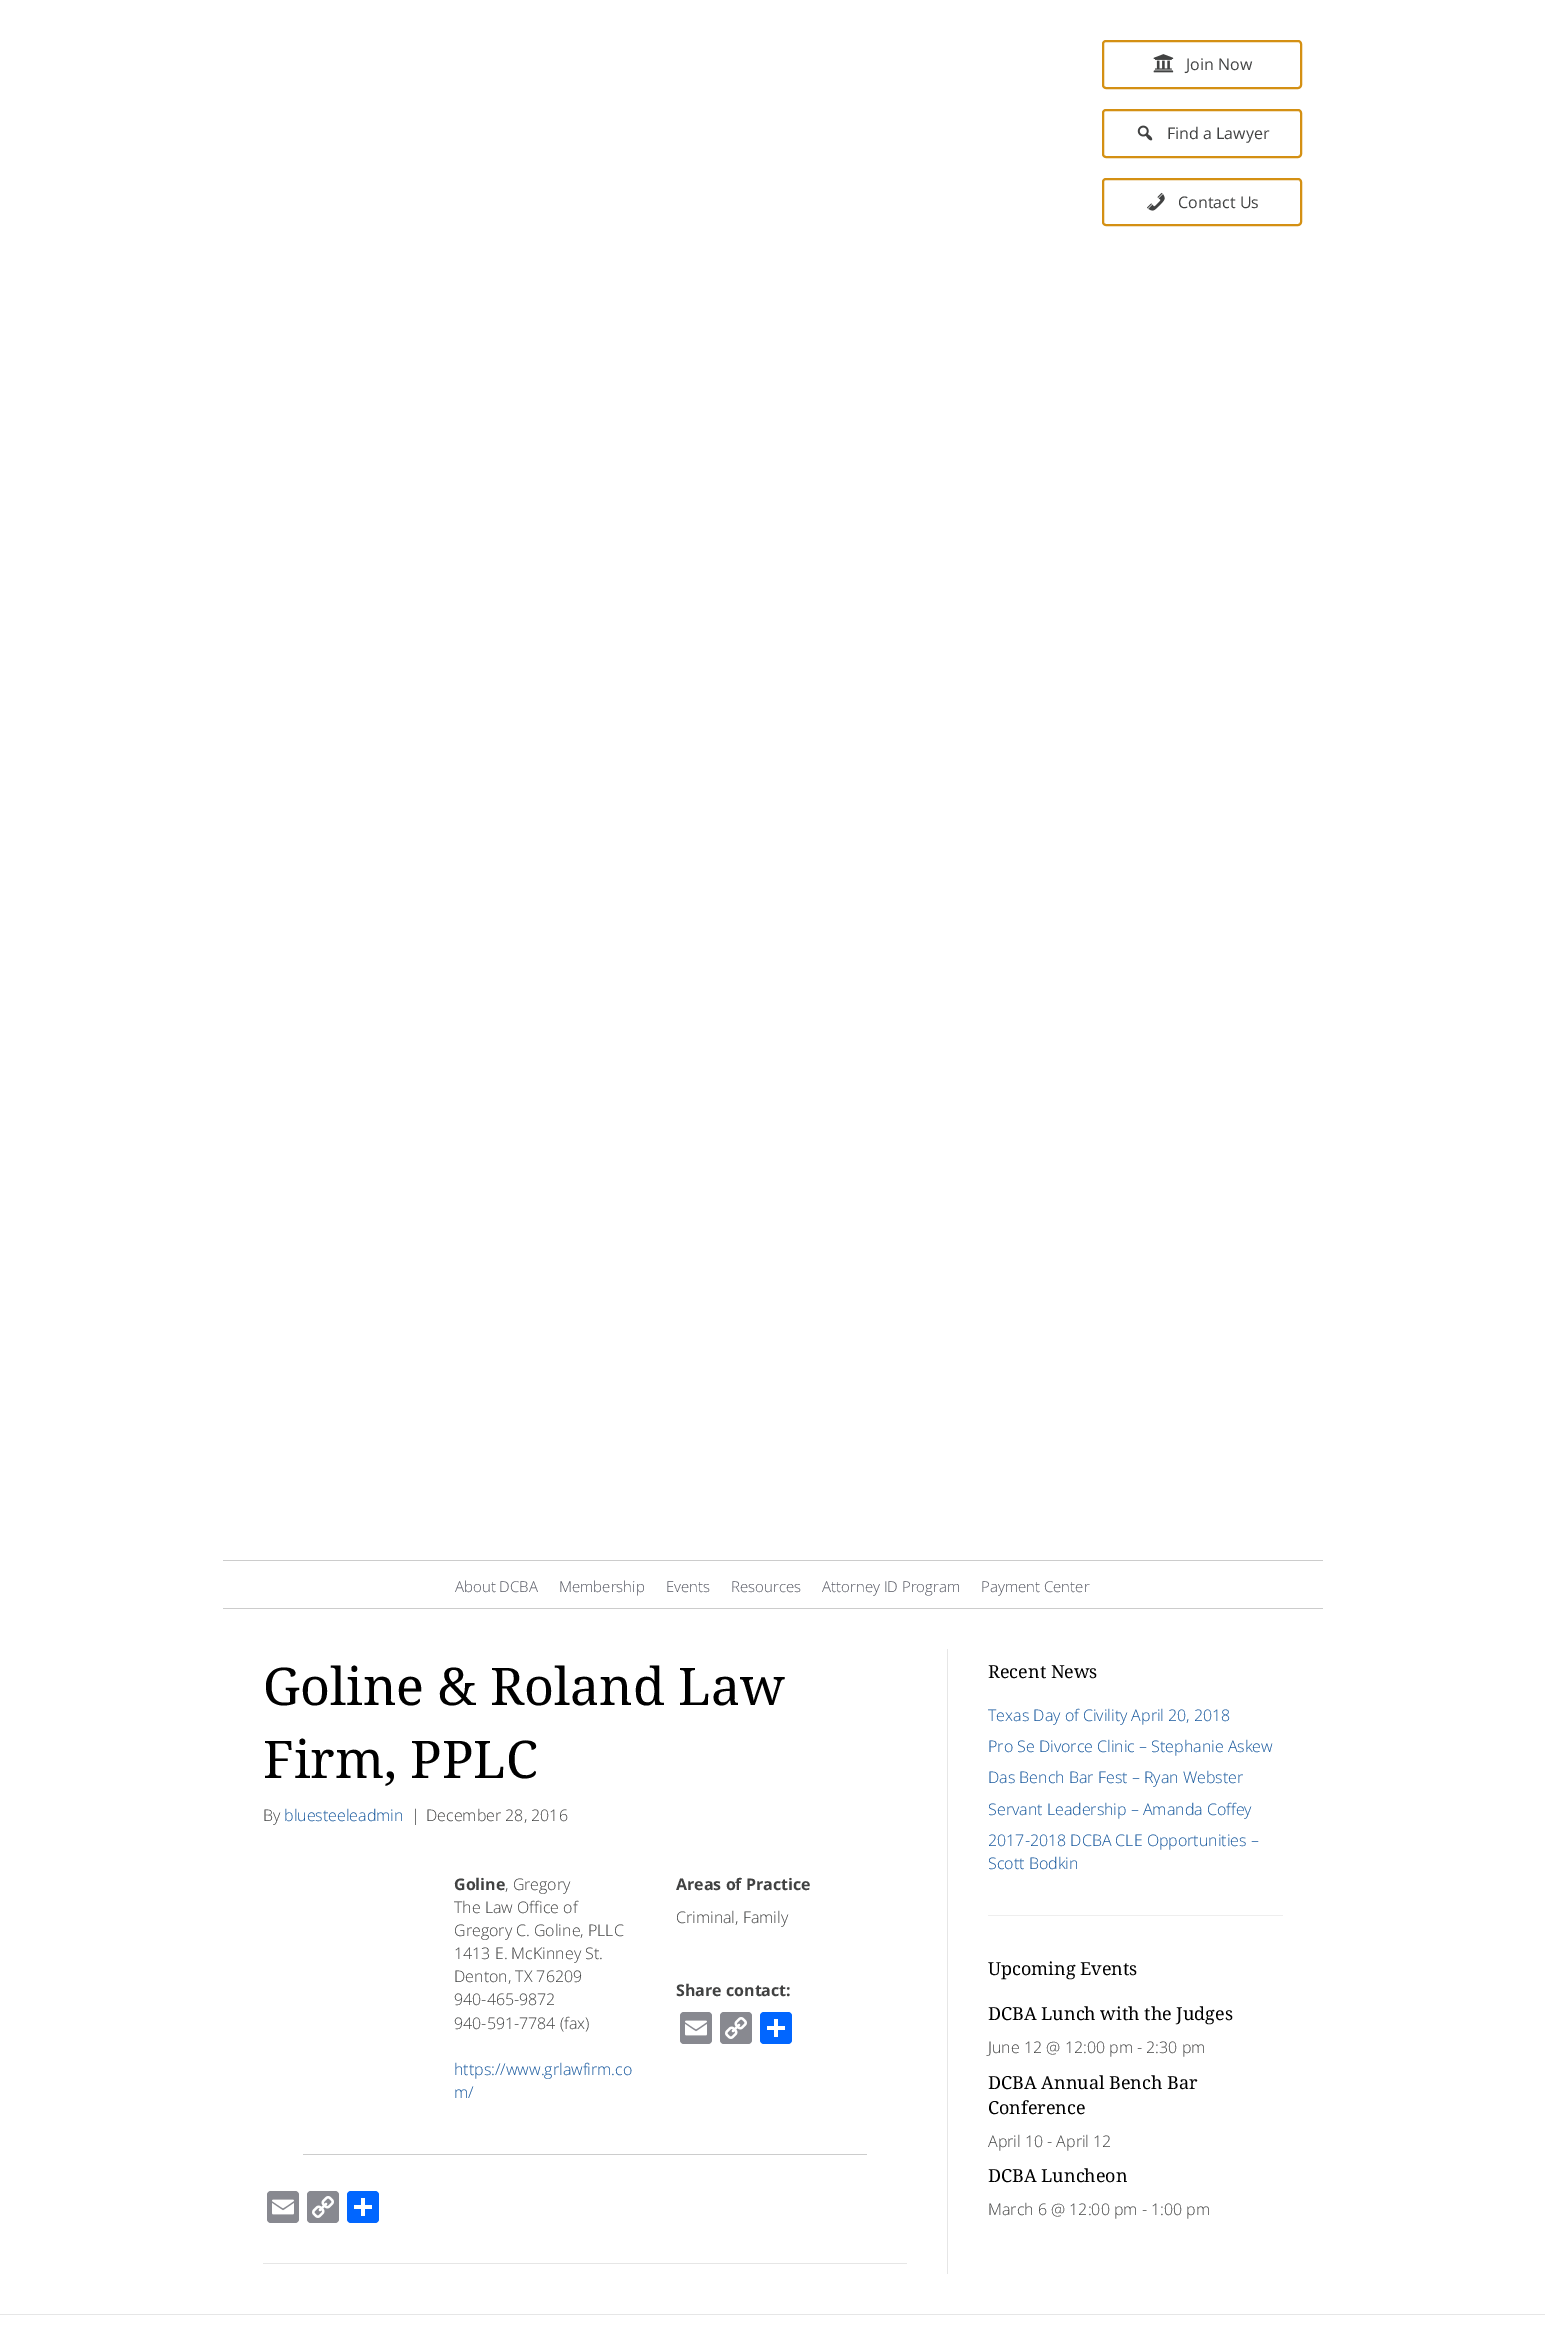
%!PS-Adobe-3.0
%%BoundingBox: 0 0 1545 2342
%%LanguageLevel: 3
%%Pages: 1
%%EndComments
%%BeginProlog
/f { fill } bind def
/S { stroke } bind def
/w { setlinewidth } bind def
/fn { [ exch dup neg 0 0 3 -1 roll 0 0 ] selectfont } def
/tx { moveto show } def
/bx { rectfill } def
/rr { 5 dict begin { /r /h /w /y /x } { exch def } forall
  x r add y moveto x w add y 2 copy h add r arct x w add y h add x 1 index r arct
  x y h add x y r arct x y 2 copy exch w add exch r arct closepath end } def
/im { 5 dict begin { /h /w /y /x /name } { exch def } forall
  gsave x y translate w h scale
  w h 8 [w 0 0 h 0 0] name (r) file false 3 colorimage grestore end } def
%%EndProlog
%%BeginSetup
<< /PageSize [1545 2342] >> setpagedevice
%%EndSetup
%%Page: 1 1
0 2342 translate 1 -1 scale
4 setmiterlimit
1 setgray
0 0 1545 2342 bx
0.831 0.565 0.075 setrgbcolor
2 w
1103 41 198 47 3 rr S
(image0.raw) 1153 54 21 19 im
/OpenSans-Regular 16 fn
0.255 0.259 0.259 setrgbcolor
(Join Now) 1186 70 tx
0.831 0.565 0.075 setrgbcolor
1103 110 198 47 3 rr S
(image1.raw) 1137 125 16 16 im
0.255 0.259 0.259 setrgbcolor
(Find a Lawyer) 1167 139 tx
0.831 0.565 0.075 setrgbcolor
1103 179 198 46 3 rr S
(image2.raw) 1147 192 18 19 im
0.255 0.259 0.259 setrgbcolor
(Contact Us) 1178 208 tx
0.8 setgray
223 1560 1100 1 bx
/OpenSans-Light 15 fn
0.325 0.333 0.376 setrgbcolor
(About DCBA) 455 1592 tx
(Membership) 559 1592 tx
(Events) 666 1592 tx
(Resources) 731 1592 tx
(Attorney ID Program) 822 1592 tx
(Payment Center) 981 1592 tx
0.8 setgray
223 1608 1100 1 bx
0.902 setgray
947 1649 1 625 bx
/NotoSerif-Regular 52 fn
0 setgray
(Goline & Roland Law) 263 1705 tx
(Firm, PPLC) 263 1778 tx
/OpenSans-Light 16 fn
0.255 0.259 0.259 setrgbcolor
(By) 263 1821 tx
0.078 0.337 0.612 setrgbcolor
(bluesteeleadmin) 284 1821 tx
0.255 0.259 0.259 setrgbcolor
(|) 411 1821 tx
(December 28, 2016) 426 1821 tx
/OpenSans-Bold 16 fn
(Goline) 454 1890 tx
/OpenSans-Light 16 fn
(, Gregory) 505 1890 tx
(The Law Office of) 454 1913 tx
(Gregory C. Goline, PLLC) 454 1936 tx
(1413 E. McKinney St.) 454 1959 tx
(Denton, TX 76209) 454 1982 tx
(940-465-9872) 454 2005 tx
(940-591-7784 \(fax\)) 454 2029 tx
0.078 0.337 0.612 setrgbcolor
(https://www.grlawfirm.co) 454 2075 tx
(m/) 454 2098 tx
/OpenSans-Bold 16 fn
0.255 0.259 0.259 setrgbcolor
(Areas of Practice) 676 1890 tx
/OpenSans-Light 16 fn
(Criminal, Family) 676 1923 tx
/OpenSans-Bold 16 fn
(Share contact:) 676 1996 tx
0.533 0.537 0.565 setrgbcolor
680 2012 32 32 4 rr f
(image3.raw) 685 2020 22 16 im
720 2012 32 32 4 rr f
(image4.raw) 725 2017 22 22 im
0.004 0.4 1 setrgbcolor
760 2012 32 32 4 rr f
1 setgray
774 2019 4 18 bx
767 2026 18 4 bx
0.8 setgray
303 2154 564 1 bx
0.533 0.537 0.565 setrgbcolor
267 2191 32 32 4 rr f
(image3.raw) 272 2199 22 16 im
307 2191 32 32 4 rr f
(image4.raw) 312 2196 22 22 im
0.004 0.4 1 setrgbcolor
347 2191 32 32 4 rr f
1 setgray
361 2198 4 18 bx
354 2205 18 4 bx
0.902 setgray
263 2263 644 1 bx
/NotoSerif-Regular 18 fn
0 setgray
(Recent News) 988 1678 tx
/OpenSans-Light 16 fn
0.078 0.337 0.612 setrgbcolor
(Texas Day of Civility April 20, 2018) 988 1721 tx
(Pro Se Divorce Clinic – Stephanie Askew) 988 1752 tx
(Das Bench Bar Fest – Ryan Webster) 988 1783 tx
(Servant Leadership – Amanda Coffey) 988 1815 tx
(2017-2018 DCBA CLE Opportunities –) 988 1846 tx
(Scott Bodkin) 988 1869 tx
0.933 setgray
988 1915 295 1 bx
/NotoSerif-Regular 18 fn
0 setgray
(Upcoming Events) 988 1975 tx
(DCBA Lunch with the Judges) 988 2020 tx
/OpenSans-Light 16 fn
0.255 0.259 0.259 setrgbcolor
(June 12 @ 12:00 pm - 2:30 pm) 988 2053 tx
/NotoSerif-Regular 18 fn
0 setgray
(DCBA Annual Bench Bar) 988 2089 tx
(Conference) 988 2114 tx
/OpenSans-Light 16 fn
0.255 0.259 0.259 setrgbcolor
(April 10 - April 12) 988 2147 tx
/NotoSerif-Regular 18 fn
0 setgray
(DCBA Luncheon) 988 2182 tx
/OpenSans-Light 16 fn
0.255 0.259 0.259 setrgbcolor
(March 6 @ 12:00 pm - 1:00 pm) 988 2215 tx
0.902 setgray
0 2314 1545 1 bx
showpage
%%EOF
